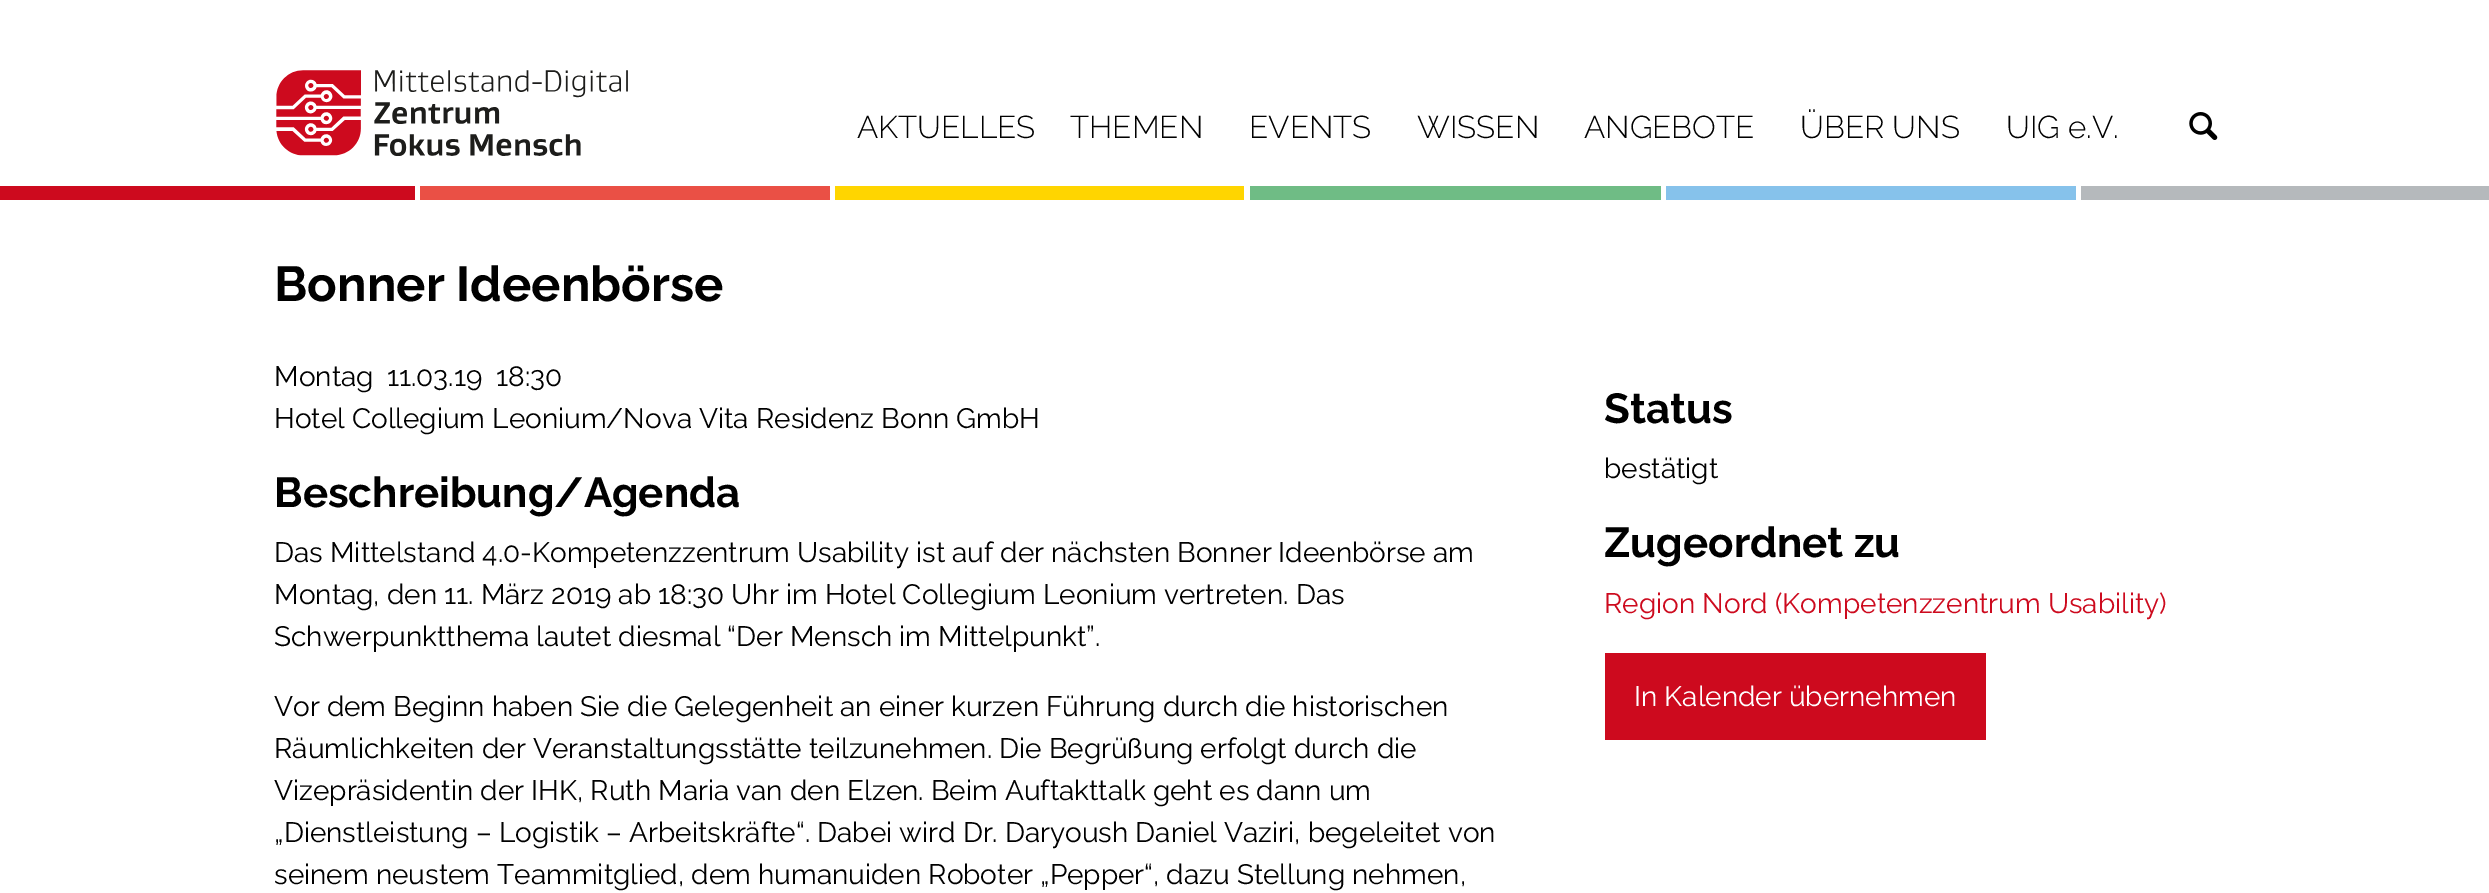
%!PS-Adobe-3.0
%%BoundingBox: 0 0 2489 893
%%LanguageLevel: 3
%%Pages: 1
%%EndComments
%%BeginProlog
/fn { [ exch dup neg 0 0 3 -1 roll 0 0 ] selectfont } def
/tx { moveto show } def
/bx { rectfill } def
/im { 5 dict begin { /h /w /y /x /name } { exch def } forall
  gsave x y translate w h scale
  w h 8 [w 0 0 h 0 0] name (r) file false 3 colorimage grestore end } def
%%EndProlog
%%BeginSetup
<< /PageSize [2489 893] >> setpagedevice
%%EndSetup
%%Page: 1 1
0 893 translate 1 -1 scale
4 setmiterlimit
1 setgray
0 0 2489 893 bx
(image0.raw) 276 70 352 86 im
/Raleway-Light 31.5 fn
0 setgray
(AKTUELLES) 857 138 tx
(THEMEN) 1070 138 tx
(EVENTS) 1249 138 tx
(WISSEN) 1417 138 tx
(ANGEBOTE) 1584 138 tx
(ÜBER UNS) 1800 138 tx
(UIG e.V.) 2006 138 tx
(image1.raw) 2189 112 29 28 im
0.804 0.039 0.118 setrgbcolor
0 186 415 14 bx
0.918 0.314 0.271 setrgbcolor
420 186 410 14 bx
1 0.835 0 setrgbcolor
835 186 409 14 bx
0.435 0.737 0.522 setrgbcolor
1250 186 411 14 bx
0.525 0.761 0.922 setrgbcolor
1666 186 410 14 bx
0.71 0.725 0.737 setrgbcolor
2081 186 408 14 bx
/Raleway-Bold 49 fn
0 setgray
(Bonner Ideenbörse) 274 301 tx
/Raleway-Regular 28 fn
(Montag) 274 386 tx
(11.03.19) 387 386 tx
(18:30) 496 386 tx
(Hotel Collegium Leonium/Nova Vita Residenz Bonn GmbH) 274 428 tx
/Raleway-Bold 42 fn
(Beschreibung/Agenda) 274 507 tx
/Raleway-Regular 28 fn
(Das Mittelstand 4.0-Kompetenzzentrum Usability ist auf der nächsten Bonner Ideenbörse am) 274 562 tx
(Montag, den 11. März 2019 ab 18:30 Uhr im Hotel Collegium Leonium vertreten. Das) 274 604 tx
(Schwerpunktthema lautet diesmal “Der Mensch im Mittelpunkt”.) 274 646 tx
(Vor dem Beginn haben Sie die Gelegenheit an einer kurzen Führung durch die historischen) 274 716 tx
(Räumlichkeiten der Veranstaltungsstätte teilzunehmen. Die Begrüßung erfolgt durch die) 274 758 tx
(Vizepräsidentin der IHK, Ruth Maria van den Elzen. Beim Auftakttalk geht es dann um) 274 800 tx
(„Dienstleistung – Logistik – Arbeitskräfte“. Dabei wird Dr. Daryoush Daniel Vaziri, begeleitet von) 274 842 tx
(seinem neustem Teammitglied, dem humanuiden Roboter „Pepper“, dazu Stellung nehmen,) 274 884 tx
/Raleway-Bold 42 fn
(Status) 1604 423 tx
/Raleway-Regular 28 fn
(bestätigt) 1604 478 tx
/Raleway-Bold 42 fn
(Zugeordnet zu) 1604 557 tx
/Raleway-Regular 28 fn
0.804 0.039 0.118 setrgbcolor
(Region Nord \(Kompetenzzentrum Usability\)) 1604 613 tx
1605 653 381 87 bx
1 setgray
(In Kalender übernehmen) 1634 706 tx
showpage
%%EOF
